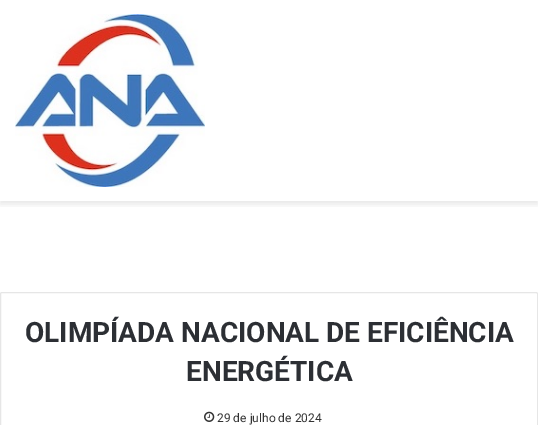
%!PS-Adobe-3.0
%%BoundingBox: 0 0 538 425
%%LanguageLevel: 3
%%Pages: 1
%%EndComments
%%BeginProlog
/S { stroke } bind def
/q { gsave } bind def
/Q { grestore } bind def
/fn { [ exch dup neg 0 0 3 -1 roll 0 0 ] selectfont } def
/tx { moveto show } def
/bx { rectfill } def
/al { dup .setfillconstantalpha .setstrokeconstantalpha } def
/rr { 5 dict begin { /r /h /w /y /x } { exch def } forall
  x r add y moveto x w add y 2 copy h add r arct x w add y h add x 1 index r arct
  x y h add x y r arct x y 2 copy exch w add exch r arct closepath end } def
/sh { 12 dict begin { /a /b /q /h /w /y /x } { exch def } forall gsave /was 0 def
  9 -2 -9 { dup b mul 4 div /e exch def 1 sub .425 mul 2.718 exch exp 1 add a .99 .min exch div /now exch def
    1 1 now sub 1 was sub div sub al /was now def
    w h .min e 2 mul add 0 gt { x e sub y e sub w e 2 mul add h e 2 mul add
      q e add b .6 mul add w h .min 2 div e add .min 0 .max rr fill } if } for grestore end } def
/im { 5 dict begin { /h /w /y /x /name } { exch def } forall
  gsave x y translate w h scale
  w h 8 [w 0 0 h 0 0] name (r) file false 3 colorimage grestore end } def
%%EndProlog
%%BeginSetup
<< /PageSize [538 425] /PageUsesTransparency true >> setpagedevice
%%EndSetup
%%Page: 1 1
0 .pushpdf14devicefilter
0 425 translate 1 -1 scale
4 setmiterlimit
1 setgray
0 0 538 425 bx
q
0 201 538 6 rectclip
0 setgray
0 3 538 201 0 3.5 0.1 sh
Q
(image0.raw) 15 14 190 173 im
0.902 setgray
0.5 292.5 537 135 1.5 rr S
/Roboto-Bold 28 fn
0.173 0.184 0.204 setrgbcolor
(OLIMPÍADA NACIONAL DE EFICIÊNCIA) 25 342 tx
(ENERGÉTICA) 186 381 tx
(image1.raw) 204 411 11 11 im
/Roboto-Regular 12 fn
0.2 setgray
(29 de julho de 2024) 217 422 tx
.poppdf14devicefilter showpage
%%EOF
